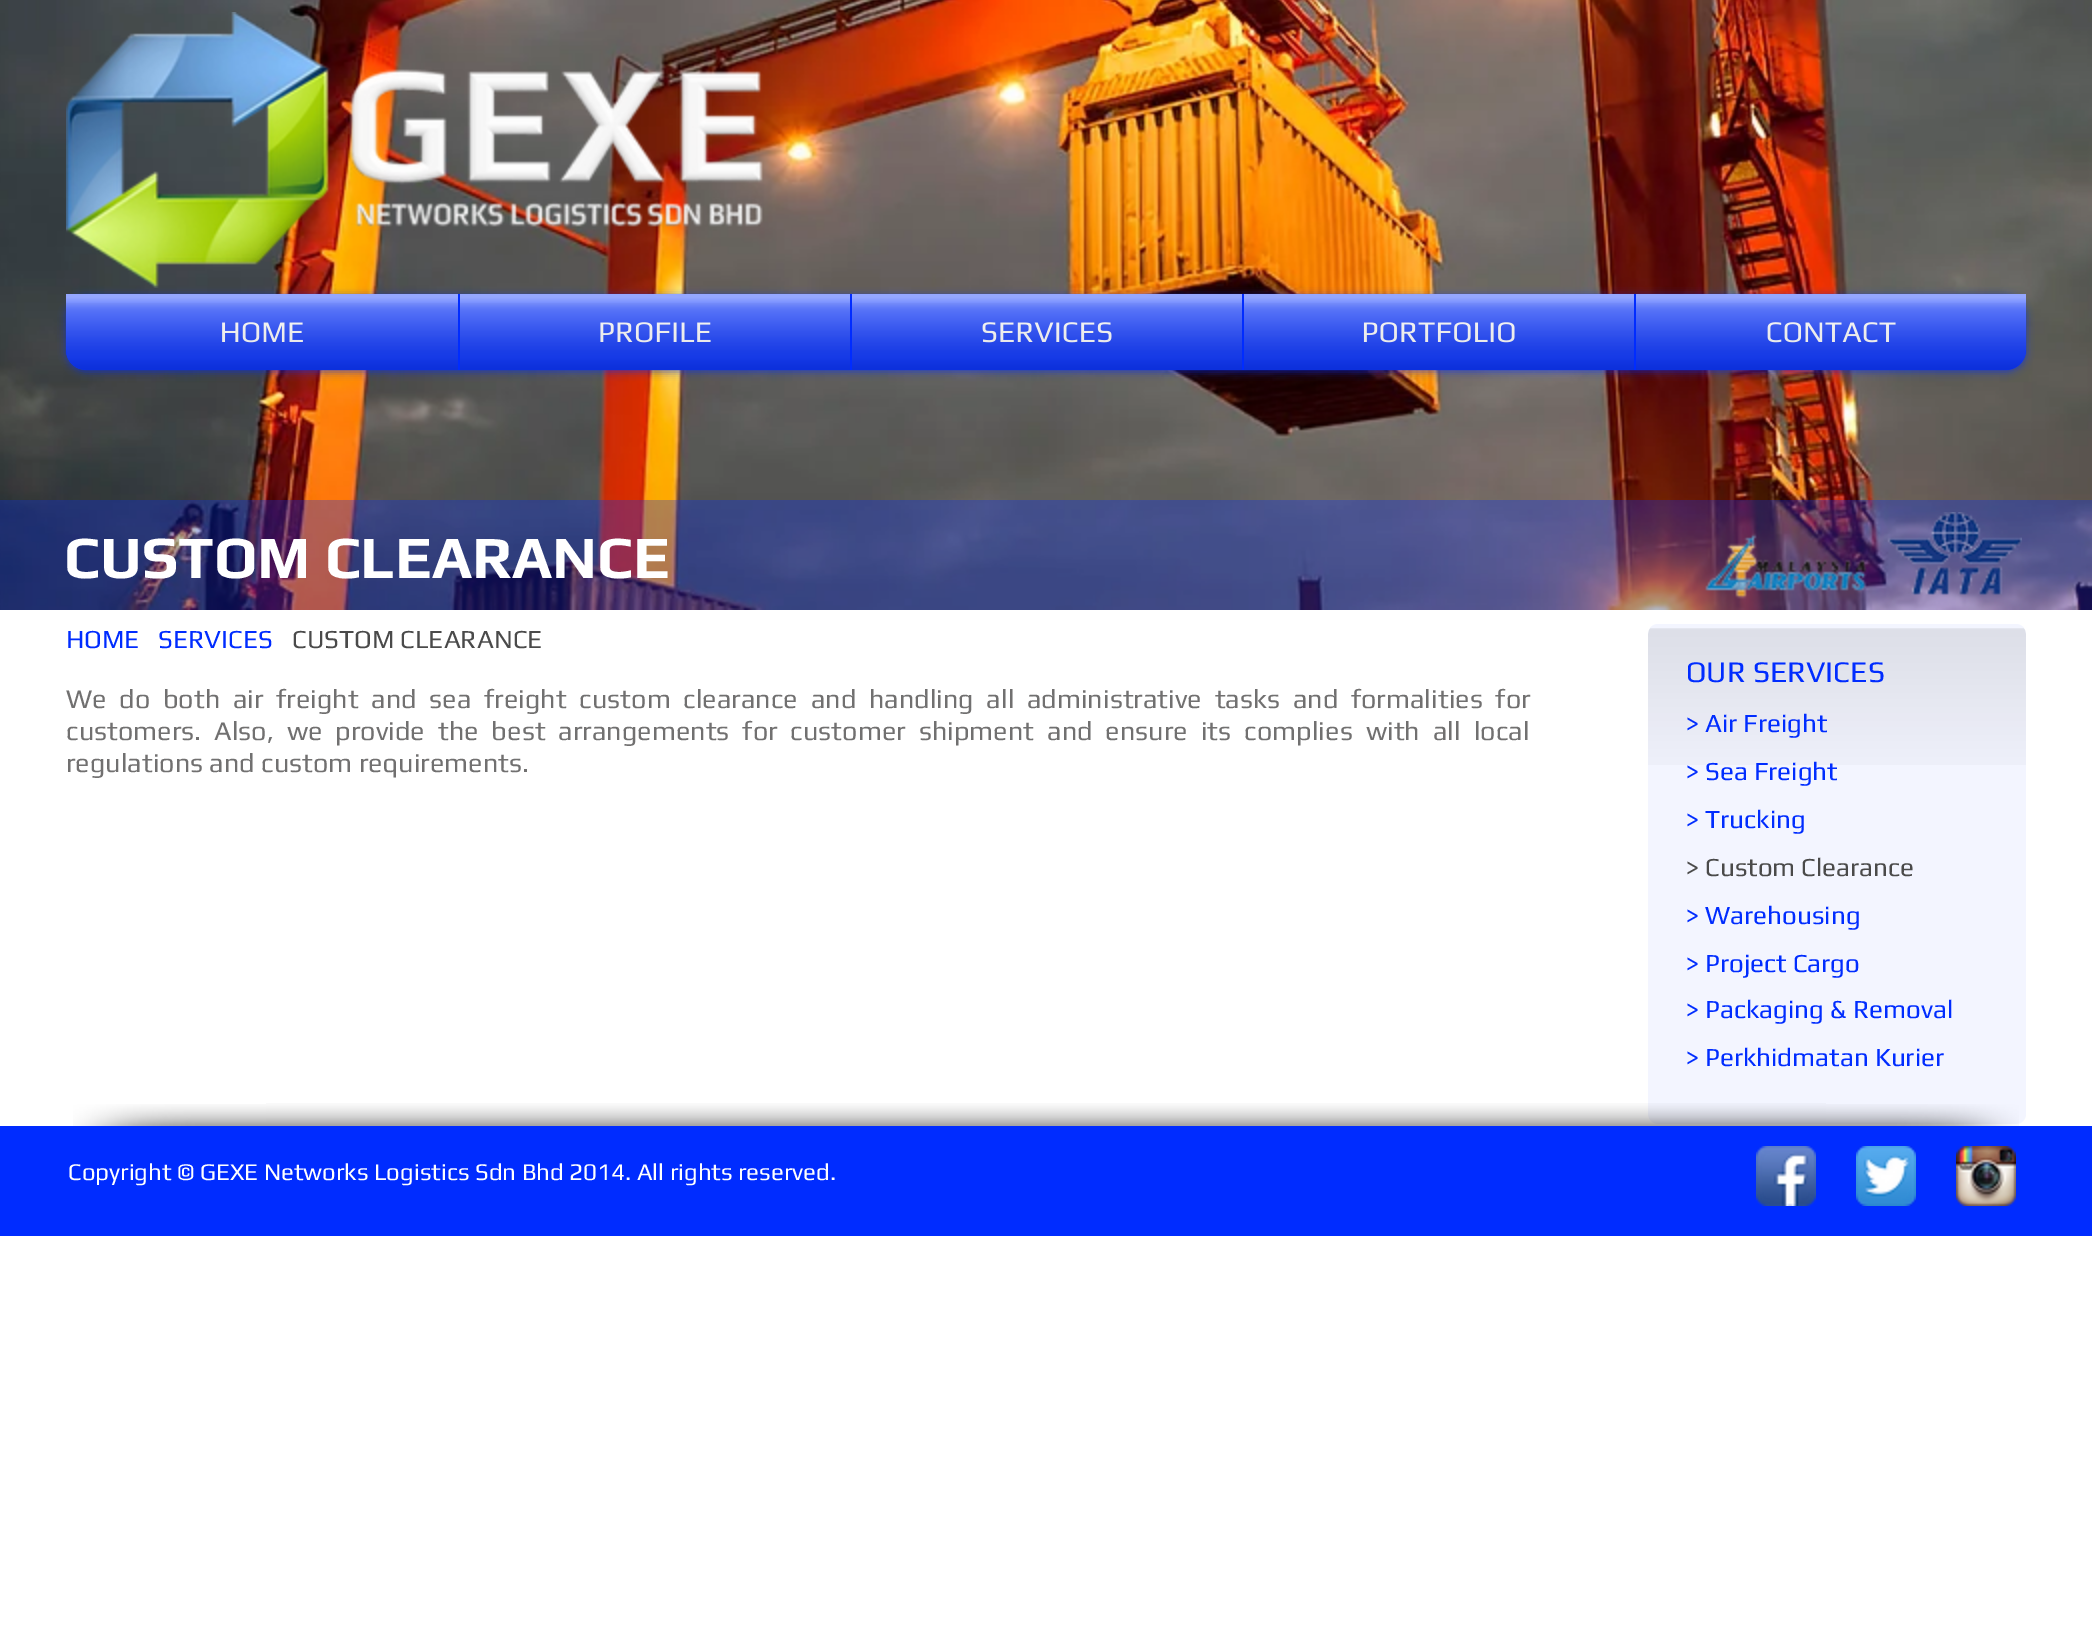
%!PS-Adobe-3.0
%%BoundingBox: 0 0 2092 1635
%%LanguageLevel: 3
%%Pages: 1
%%EndComments
%%BeginProlog
/m { moveto } bind def
/l { lineto } bind def
/c { curveto } bind def
/h { closepath } bind def
/f { fill } bind def
/fn { [ exch dup neg 0 0 3 -1 roll 0 0 ] selectfont } def
/tx { moveto show } def
/bx { rectfill } def
/al { dup .setfillconstantalpha .setstrokeconstantalpha } def
/rr { 5 dict begin { /r /h /w /y /x } { exch def } forall
  x r add y moveto x w add y 2 copy h add r arct x w add y h add x 1 index r arct
  x y h add x y r arct x y 2 copy exch w add exch r arct closepath end } def
/sh { 12 dict begin { /a /b /q /h /w /y /x } { exch def } forall gsave /was 0 def
  9 -2 -9 { dup b mul 4 div /e exch def 1 sub .425 mul 2.718 exch exp 1 add a .99 .min exch div /now exch def
    1 1 now sub 1 was sub div sub al /was now def
    w h .min e 2 mul add 0 gt { x e sub y e sub w e 2 mul add h e 2 mul add
      q e add b .6 mul add w h .min 2 div e add .min 0 .max rr fill } if } for grestore end } def
/im { 5 dict begin { /h /w /y /x /name } { exch def } forall
  gsave x y translate w h scale
  w h 8 [w 0 0 h 0 0] name (r) file false 3 colorimage grestore end } def
%%EndProlog
%%BeginSetup
<< /PageSize [2092 1635] /PageUsesTransparency true >> setpagedevice
%%EndSetup
%%Page: 1 1
0 .pushpdf14devicefilter
0 1635 translate 1 -1 scale
4 setmiterlimit
1 setgray
0 0 2092 1635 bx
(image13.raw) 0 0 2092 610 im
0 0.173 1 setrgbcolor
66 296 1960 76 20 4 0.6 sh
(image0.raw) 66 12 697 276 im
(image1.raw) 66 350 1960 20 im
(image2.raw) 66 350 1960 20 im
66 294 m 458 294 l 458 370 l 86 370 l 75 370 66 361 66 350 c h f
/Play-Regular 30 fn
1 setgray
(HOME) 220 342 tx
(image3.raw) 66 294 392 76 im
(image4.raw) 66 303 392 67 im
0 0.173 1 setrgbcolor
458 294 1176 76 bx
1 setgray
(PROFILE) 598 342 tx
(image5.raw) 460 294 390 76 im
(image6.raw) 460 303 390 67 im
(SERVICES) 981 342 tx
(image7.raw) 852 294 390 76 im
(image8.raw) 852 303 390 67 im
(PORTFOLIO) 1361 342 tx
(image9.raw) 1244 294 390 76 im
(image10.raw) 1244 303 390 67 im
0 0.173 1 setrgbcolor
1634 294 m 2026 294 l 2026 350 l 2026 361 2017 370 2006 370 c 1634 370 l h f
1 setgray
(CONTACT) 1766 342 tx
(image11.raw) 1636 294 390 76 im
(image12.raw) 1636 303 390 67 im
0.3 al
0 0.173 1 setrgbcolor
0 500 2092 110 bx
/Play-Bold 60 fn
1 al
1 setgray
(CUSTOM CLEARANCE) 64 578 tx
(image14.raw) 1705 512 317 87 im
/Play-Regular 26 fn
0 0.173 1 setrgbcolor
(HOME) 66 648 tx
(SERVICES) 158 648 tx
0.29 setgray
(CUSTOM CLEARANCE) 292 648 tx
/Play-Regular 27 fn
0.443 0.439 0.439 setrgbcolor
66 708 m 6.5 0 32 (We do both air freight and sea freight custom clearance and handling all administrative tasks and formalities for) widthshow
66 740 m 6.75 0 32 (customers. Also, we provide the best arrangements for customer shipment and ensure its complies with all local) widthshow
(regulations and custom requirements.) 66 772 tx
0.953 0.961 1 setrgbcolor
1648 624 378 500 10 rr f
(image15.raw) 1648 628 378 137 im
/Play-Regular 30 fn
0 0.173 1 setrgbcolor
(OUR SERVICES) 1686 682 tx
/Play-Regular 26 fn
(> Air Freight) 1686 732 tx
(> Sea Freight) 1686 780 tx
(> Trucking) 1686 828 tx
0.29 setgray
(> Custom Clearance) 1686 876 tx
0 0.173 1 setrgbcolor
(> Warehousing) 1686 924 tx
(> Project Cargo) 1686 972 tx
(> Packaging & Removal) 1686 1018 tx
(> Perkhidmatan Kurier) 1686 1066 tx
0 1126 2092 110 bx
(image16.raw) 73 1104 193 22 im
(image17.raw) 266 1103 1560 23 im
(image18.raw) 1826 1104 193 22 im
/Play-Regular 24 fn
1 setgray
(Copyright © GEXE Networks Logistics Sdn Bhd 2014. All rights reserved.) 68 1180 tx
(image19.raw) 1756 1146 60 60 im
(image20.raw) 1856 1146 60 60 im
(image21.raw) 1956 1146 60 60 im
.poppdf14devicefilter showpage
%%EOF
